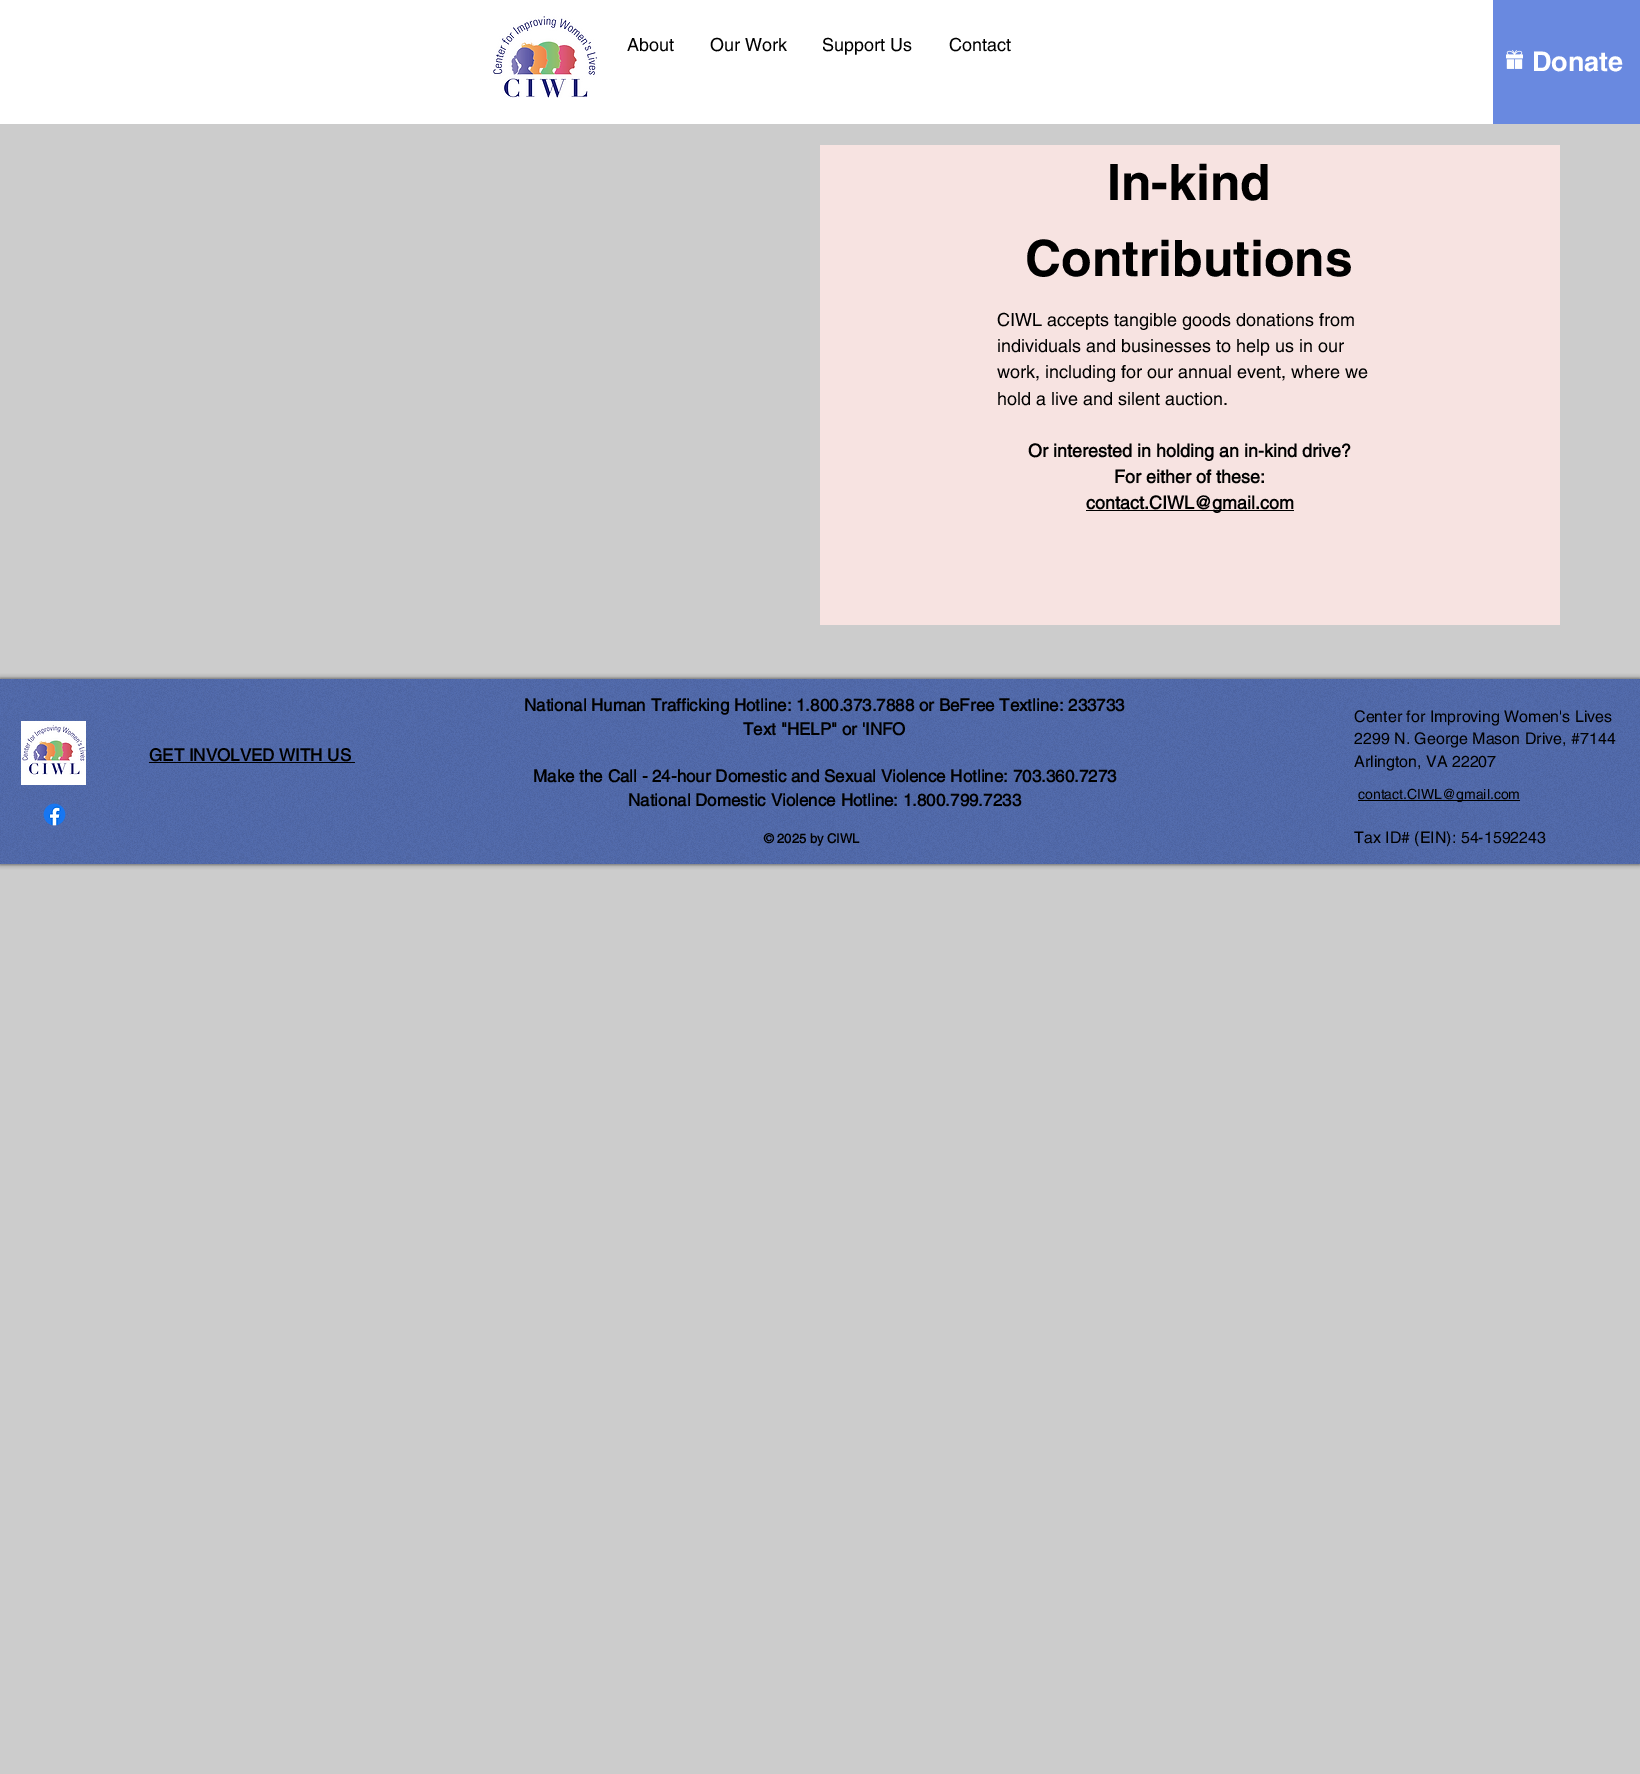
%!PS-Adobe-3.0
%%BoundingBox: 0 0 1640 1774
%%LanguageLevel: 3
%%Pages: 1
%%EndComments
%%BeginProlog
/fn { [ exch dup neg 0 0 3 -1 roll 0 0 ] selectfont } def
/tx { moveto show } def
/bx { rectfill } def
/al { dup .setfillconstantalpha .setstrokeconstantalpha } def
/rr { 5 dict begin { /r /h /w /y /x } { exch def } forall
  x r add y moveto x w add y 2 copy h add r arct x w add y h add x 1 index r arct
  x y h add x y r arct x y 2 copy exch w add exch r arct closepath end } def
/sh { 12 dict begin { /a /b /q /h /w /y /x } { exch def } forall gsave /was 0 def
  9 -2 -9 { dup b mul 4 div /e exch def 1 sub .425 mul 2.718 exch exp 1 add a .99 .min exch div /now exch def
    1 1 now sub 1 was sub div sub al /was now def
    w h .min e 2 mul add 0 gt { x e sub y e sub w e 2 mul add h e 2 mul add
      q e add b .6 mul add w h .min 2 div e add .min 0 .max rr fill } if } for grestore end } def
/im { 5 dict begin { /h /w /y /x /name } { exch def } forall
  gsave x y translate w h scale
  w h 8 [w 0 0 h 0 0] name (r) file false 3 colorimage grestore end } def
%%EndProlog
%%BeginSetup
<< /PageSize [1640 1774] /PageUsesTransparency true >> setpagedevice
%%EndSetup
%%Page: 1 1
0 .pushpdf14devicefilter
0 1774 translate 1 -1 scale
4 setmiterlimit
0.8 setgray
0 0 1640 1774 bx
1 setgray
0 0 1493 124 bx
(image0.raw) 493 16 104 82 im
/helvetica-Regular 18 fn
0 setgray
(About) 627 51 tx
(Our Work) 710 51 tx
(Support Us) 822 51 tx
(Contact) 949 51 tx
0.412 0.537 0.878 setrgbcolor
1493 0 147 124 bx
(image1.raw) 1506 50 17 19 im
/helvetica-Bold 27 fn
1 setgray
(Donate) 1532 71 tx
0.969 0.89 0.882 setrgbcolor
820 145 740 480 bx
/helvetica-Bold 50 fn
0 setgray
(In-kind) 1107 200 tx
(Contributions) 1025 276 tx
/helvetica-Regular 18 fn
(CIWL accepts tangible goods donations from) 997 326 tx
(individuals and businesses to help us in our) 997 352 tx
(work, including for our annual event, where we) 997 378 tx
(hold a live and silent auction.) 997 405 tx
/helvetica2-Bold 18 fn
(Or interested in holding an in-kind drive?) 1028 457 tx
(For either of these:) 1114 483 tx
1086 510 208 1 bx
(contact.CIWL@gmail.com) 1086 509 tx
0 679 1640 185 0 2.5 0.7 sh
0.318 0.416 0.675 setrgbcolor
0 679 1640 185 bx
(image2.raw) 0 679 1640 185 im
(image3.raw) 21 721 65 64 im
/helvetica2-Bold 17 fn
0 setgray
(GET INVOLVED WITH US) 149 761 tx
149 762 206 1 bx
(National Human Trafficking Hotline: 1.800.373.7888 or BeFree Textline: 233733) 524 711 tx
(Text "HELP" or 'INFO) 743 735 tx
(Make the Call - 24-hour Domestic and Sexual Violence Hotline: 703.360.7273) 533 782 tx
(National Domestic Violence Hotline: 1.800.799.7233) 628 806 tx
/helvetica-Regular 16 fn
(Center for Improving Women's Lives) 1354 722 tx
(2299 N. George Mason Drive, #7144) 1354 744 tx
(Arlington, VA 22207) 1354 767 tx
(image4.raw) 43 803 23 23 im
1358 800 162 1 bx
/helvetica-Regular 14 fn
(contact.CIWL@gmail.com) 1358 799 tx
/helvetica-Regular 16 fn
(Tax ID# \(EIN\): 54-1592243) 1354 843 tx
/helvetica2-Bold 13 fn
(© 2025 by CIWL) 764 843 tx
.poppdf14devicefilter showpage
%%EOF
